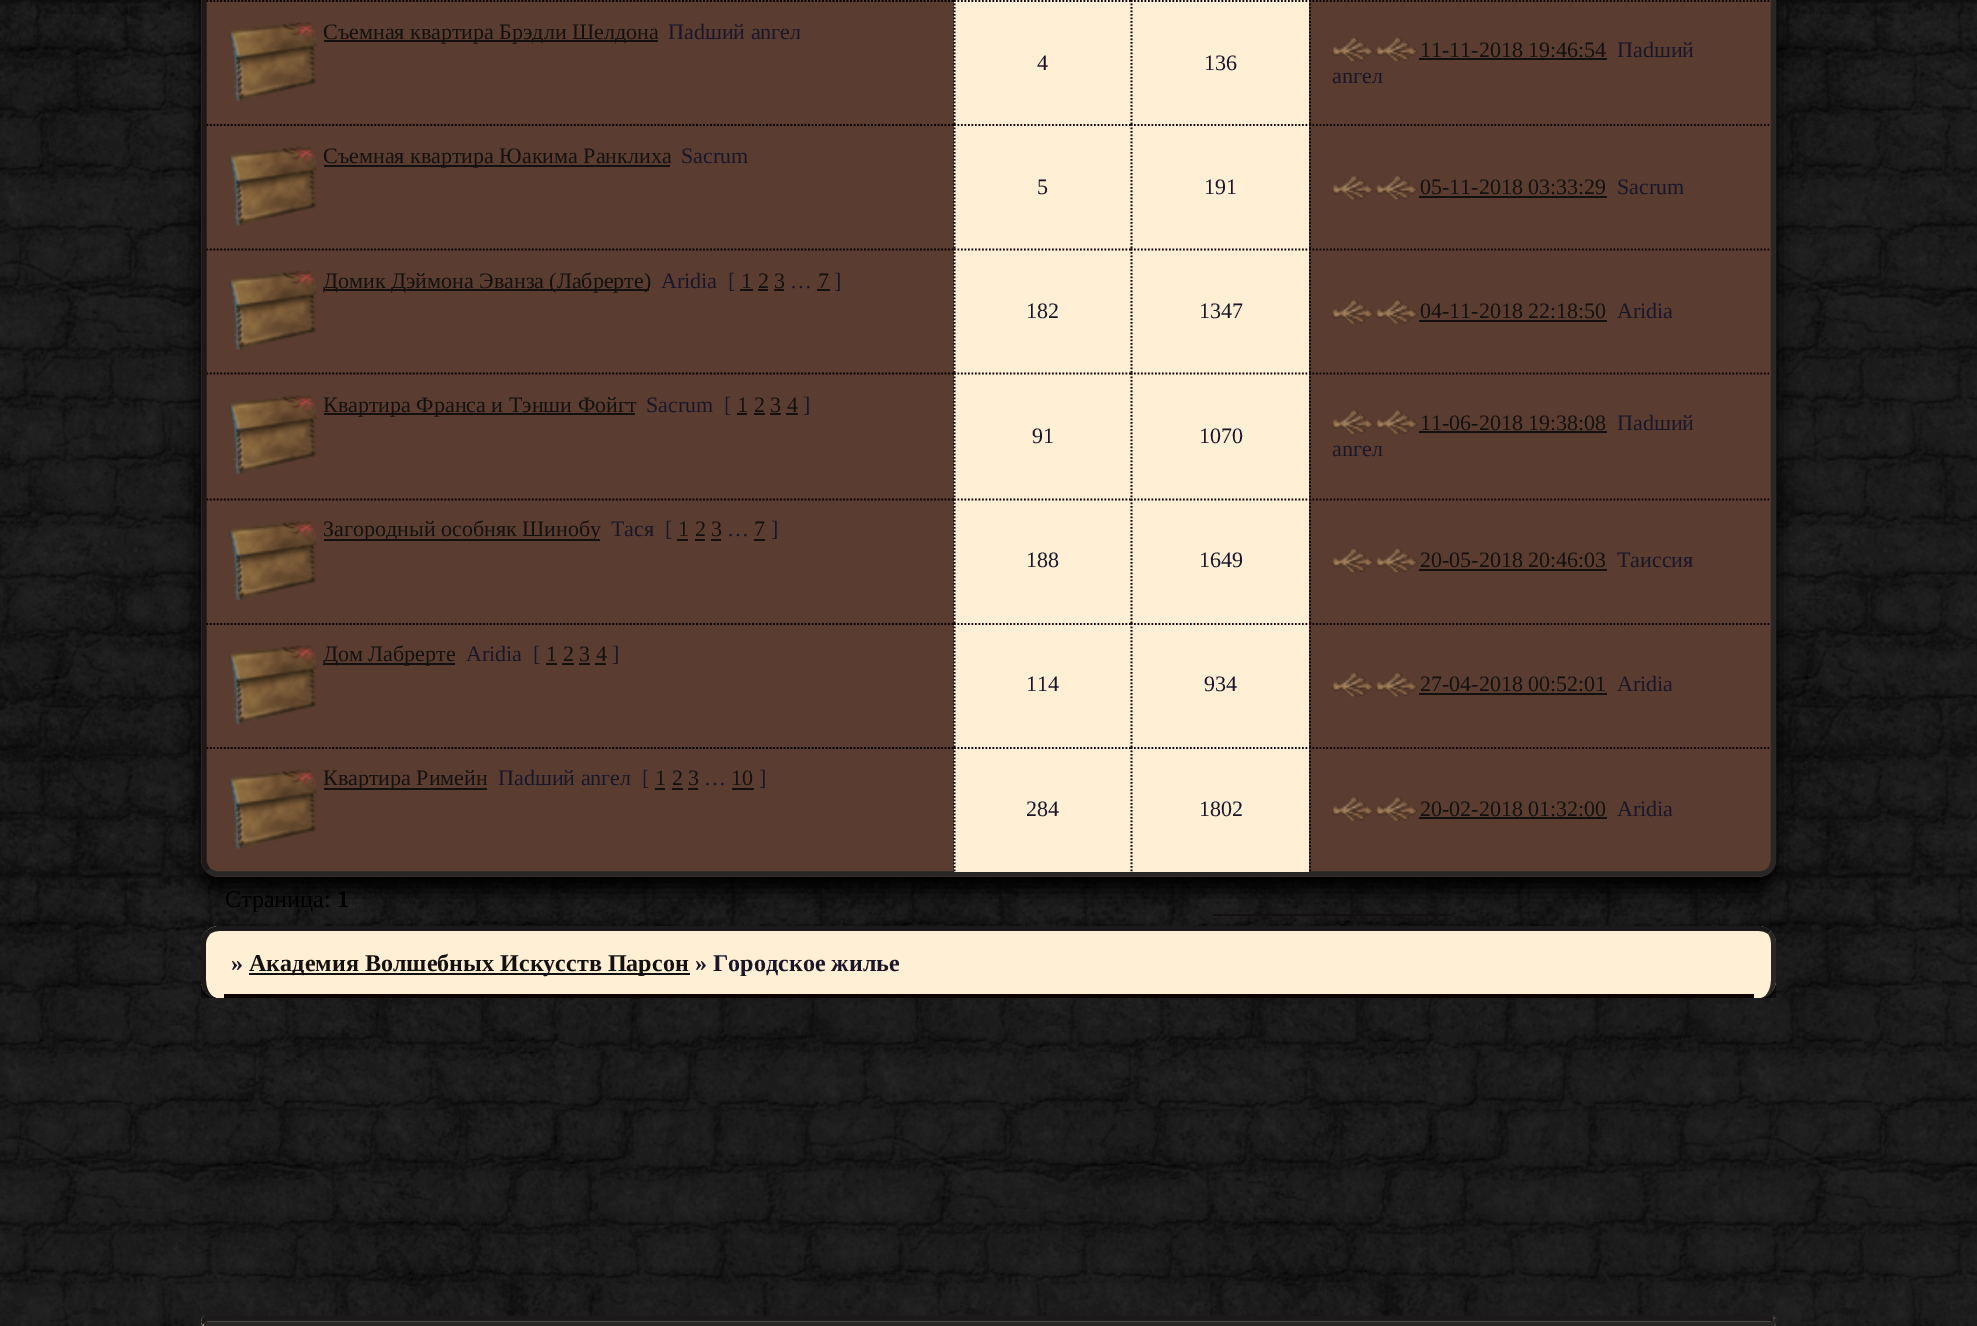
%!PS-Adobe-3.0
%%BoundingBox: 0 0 1977 1326
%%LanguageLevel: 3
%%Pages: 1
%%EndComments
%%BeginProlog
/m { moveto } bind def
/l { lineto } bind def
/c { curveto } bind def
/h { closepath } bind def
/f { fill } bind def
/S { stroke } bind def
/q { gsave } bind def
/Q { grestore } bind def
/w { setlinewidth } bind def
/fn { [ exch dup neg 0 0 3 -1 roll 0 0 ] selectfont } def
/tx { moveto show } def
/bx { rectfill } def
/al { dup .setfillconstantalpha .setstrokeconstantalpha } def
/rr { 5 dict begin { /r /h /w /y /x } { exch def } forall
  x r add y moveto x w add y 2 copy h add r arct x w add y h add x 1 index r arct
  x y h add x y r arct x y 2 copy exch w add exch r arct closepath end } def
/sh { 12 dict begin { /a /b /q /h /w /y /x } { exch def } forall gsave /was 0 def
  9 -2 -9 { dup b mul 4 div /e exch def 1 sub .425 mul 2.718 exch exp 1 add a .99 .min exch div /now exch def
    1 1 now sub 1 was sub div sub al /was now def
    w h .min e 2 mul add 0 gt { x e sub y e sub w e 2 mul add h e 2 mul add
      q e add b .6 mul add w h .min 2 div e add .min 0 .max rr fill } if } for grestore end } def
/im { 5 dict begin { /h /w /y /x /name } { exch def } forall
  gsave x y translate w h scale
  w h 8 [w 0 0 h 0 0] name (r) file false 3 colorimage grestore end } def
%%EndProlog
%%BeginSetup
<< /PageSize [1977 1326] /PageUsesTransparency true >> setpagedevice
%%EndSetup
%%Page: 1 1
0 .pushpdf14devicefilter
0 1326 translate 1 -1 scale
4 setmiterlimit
1 setgray
0 0 1977 1326 bx
(image0.raw) 0 0 1977 1326 im
0 setgray
201 -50 1575 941 18 10.5 1 sh
0.353 0.239 0.188 setrgbcolor
201 -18 1575 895 18 rr f
0.161 0.149 0.149 setrgbcolor
5.2 w
1769.5 -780.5 m 1772 -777.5 1773.5 -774 1773.5 -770 c 1773.5 859 l 1773.5 863 1772 867 1769.5 870 c 1766.5 872.5 1762.5 874 1759 874 c 219 874 l 215 874 211 872.5 208 870 c S
0.106 0.098 0.098 setrgbcolor
208 870 m 205.5 867 204 863 204 859 c 204 -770 l 204 -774 205.5 -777.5 208 -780.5 c 211 -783.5 215 -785 219 -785 c 1759 -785 l 1762.5 -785 1766.5 -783.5 1769.5 -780.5 c S
1 0.937 0.835 setrgbcolor
954 0 355 124 bx
0.055 0.012 0.012 setrgbcolor
1.8 w
[1.75 1.75] 0 setdash
954 1 m 1130.5 1 l S
954.5 0 m 954.5 124 l S
206.5 1 m 954 1 l S
(image1.raw) 229 22 88 80 im
0.075 0.063 0.059 setrgbcolor
324 40 334 2 bx
/LiberationSerif-Regular 22 fn
(Съемная квартира Брэдли Шелдона) 323 39 tx
0.102 0.086 0.165 setrgbcolor
(Паdший аnгел) 668 39 tx
(4) 1037 70 tx
0.055 0.012 0.012 setrgbcolor
1130.5 1 m 1309 1 l S
1131.5 0 m 1131.5 124 l S
0.102 0.086 0.165 setrgbcolor
(136) 1204 70 tx
0.055 0.012 0.012 setrgbcolor
1309 1 m 1771 1 l S
1310 0 m 1310 124 l S
(image2.raw) 1331 36 43 25 im
(image3.raw) 1375 36 43 25 im
0.075 0.063 0.059 setrgbcolor
(11-11-2018 19:46:54) 1420 57 tx
1419 58 188 2 bx
0.102 0.086 0.165 setrgbcolor
(Паdший) 1617 57 tx
(аnгел) 1332 83 tx
1 0.937 0.835 setrgbcolor
954 124 355 125 bx
0.055 0.012 0.012 setrgbcolor
954 125 m 1130.5 125 l S
954.5 124 m 954.5 248.5 l S
206.5 125 m 954 125 l S
(image4.raw) 229 146 88 80 im
0.075 0.063 0.059 setrgbcolor
324 165 346 2 bx
(Съемная квартира Юакима Ранклиха) 323 163 tx
0.102 0.086 0.165 setrgbcolor
(Sacrum) 681 163 tx
(5) 1037 194 tx
0.055 0.012 0.012 setrgbcolor
1130.5 125 m 1309 125 l S
1131.5 124 m 1131.5 248.5 l S
0.102 0.086 0.165 setrgbcolor
(191) 1204 194 tx
0.055 0.012 0.012 setrgbcolor
1309 125 m 1771 125 l S
1310 124 m 1310 248.5 l S
(image5.raw) 1331 175 43 25 im
(image6.raw) 1375 175 43 25 im
0.075 0.063 0.059 setrgbcolor
(05-11-2018 03:33:29) 1420 194 tx
1419 196 188 2 bx
0.102 0.086 0.165 setrgbcolor
(Sacrum) 1617 194 tx
1 0.937 0.835 setrgbcolor
954 249 355 124 bx
0.055 0.012 0.012 setrgbcolor
954 249.5 m 1130.5 249.5 l S
954.5 248.5 m 954.5 373 l S
206.5 249.5 m 954 249.5 l S
(image7.raw) 229 270 88 80 im
0.075 0.063 0.059 setrgbcolor
324 289 325 2 bx
(Домик Дэймона Эванза \(Лабрерте\)) 323 288 tx
0.102 0.086 0.165 setrgbcolor
(Aridia) 661 288 tx
([) 728 288 tx
0.075 0.063 0.059 setrgbcolor
(1 2 3) 741 288 tx
740 289 13 2 bx
758 289 10 2 bx
0.102 0.086 0.165 setrgbcolor
(…) 790 288 tx
0.075 0.063 0.059 setrgbcolor
774 289 10 2 bx
817 289 13 2 bx
(7) 818 288 tx
0.102 0.086 0.165 setrgbcolor
(]) 834 288 tx
(182) 1026 318 tx
0.055 0.012 0.012 setrgbcolor
1130.5 249.5 m 1309 249.5 l S
1131.5 248.5 m 1131.5 373 l S
0.102 0.086 0.165 setrgbcolor
(1347) 1199 318 tx
0.055 0.012 0.012 setrgbcolor
1309 249.5 m 1771 249.5 l S
1310 248.5 m 1310 373 l S
(image8.raw) 1331 299 43 25 im
(image9.raw) 1375 299 43 25 im
0.075 0.063 0.059 setrgbcolor
(04-11-2018 22:18:50) 1420 318 tx
1419 320 188 2 bx
0.102 0.086 0.165 setrgbcolor
(Aridia) 1617 318 tx
1 0.937 0.835 setrgbcolor
954 373 355 126 bx
0.055 0.012 0.012 setrgbcolor
954 373.5 m 1130.5 373.5 l S
954.5 373 m 954.5 499 l S
206.5 373.5 m 954 373.5 l S
(image10.raw) 229 395 88 79 im
0.075 0.063 0.059 setrgbcolor
324 413 311 2 bx
(Квартира Франса и Тэнши Фойгт) 323 412 tx
0.102 0.086 0.165 setrgbcolor
(Sacrum) 646 412 tx
([) 724 412 tx
0.075 0.063 0.059 setrgbcolor
(1 2 3 4) 737 412 tx
737 413 10 2 bx
754 413 11 2 bx
770 413 11 2 bx
786 413 12 2 bx
0.102 0.086 0.165 setrgbcolor
(]) 803 412 tx
(91) 1032 443 tx
0.055 0.012 0.012 setrgbcolor
1130.5 373.5 m 1309 373.5 l S
1131.5 373 m 1131.5 499 l S
0.102 0.086 0.165 setrgbcolor
(1070) 1199 443 tx
0.055 0.012 0.012 setrgbcolor
1309 373.5 m 1771 373.5 l S
1310 373 m 1310 499 l S
(image11.raw) 1331 409 43 25 im
(image12.raw) 1375 409 43 25 im
0.075 0.063 0.059 setrgbcolor
(11-06-2018 19:38:08) 1420 430 tx
1419 431 188 2 bx
0.102 0.086 0.165 setrgbcolor
(Паdший) 1617 430 tx
(аnгел) 1332 456 tx
1 0.937 0.835 setrgbcolor
954 499 355 124 bx
0.055 0.012 0.012 setrgbcolor
954 499.5 m 1130.5 499.5 l S
954.5 499 m 954.5 623 l S
206.5 499.5 m 954 499.5 l S
(image10.raw) 229 521 88 79 im
0.075 0.063 0.059 setrgbcolor
324 539 276 2 bx
(Загородный особняк Шинобу) 323 536 tx
0.102 0.086 0.165 setrgbcolor
(Тася) 611 536 tx
([) 665 536 tx
0.075 0.063 0.059 setrgbcolor
(1 2 3) 678 536 tx
677 539 11 2 bx
695 539 10 2 bx
0.102 0.086 0.165 setrgbcolor
(…) 727 536 tx
0.075 0.063 0.059 setrgbcolor
711 539 10 2 bx
754 539 11 2 bx
(7) 754 536 tx
0.102 0.086 0.165 setrgbcolor
(]) 771 536 tx
(188) 1026 567 tx
0.055 0.012 0.012 setrgbcolor
1130.5 499.5 m 1309 499.5 l S
1131.5 499 m 1131.5 623 l S
0.102 0.086 0.165 setrgbcolor
(1649) 1199 567 tx
0.055 0.012 0.012 setrgbcolor
1309 499.5 m 1771 499.5 l S
1310 499 m 1310 623 l S
(image2.raw) 1331 547 43 25 im
(image3.raw) 1375 547 43 25 im
0.075 0.063 0.059 setrgbcolor
(20-05-2018 20:46:03) 1420 567 tx
1419 569 188 2 bx
0.102 0.086 0.165 setrgbcolor
(Таиссия) 1617 567 tx
1 0.937 0.835 setrgbcolor
954 623 355 124 bx
0.055 0.012 0.012 setrgbcolor
954 624 m 1130.5 624 l S
954.5 623 m 954.5 747 l S
206.5 624 m 954 624 l S
(image13.raw) 229 645 88 80 im
0.075 0.063 0.059 setrgbcolor
324 663 131 2 bx
(Дом Лабрерте) 323 661 tx
0.102 0.086 0.165 setrgbcolor
(Aridia) 466 661 tx
([) 533 661 tx
0.075 0.063 0.059 setrgbcolor
(1 2 3 4) 546 661 tx
546 663 11 2 bx
562 663 12 2 bx
579 663 11 2 bx
595 663 11 2 bx
0.102 0.086 0.165 setrgbcolor
(]) 612 661 tx
(114) 1026 691 tx
0.055 0.012 0.012 setrgbcolor
1130.5 624 m 1309 624 l S
1131.5 623 m 1131.5 747 l S
0.102 0.086 0.165 setrgbcolor
(934) 1204 691 tx
0.055 0.012 0.012 setrgbcolor
1309 624 m 1771 624 l S
1310 623 m 1310 747 l S
(image5.raw) 1331 672 43 25 im
(image6.raw) 1375 672 43 25 im
0.075 0.063 0.059 setrgbcolor
(27-04-2018 00:52:01) 1420 691 tx
1419 693 188 2 bx
0.102 0.086 0.165 setrgbcolor
(Aridia) 1617 691 tx
1 0.937 0.835 setrgbcolor
954 747 355 125 bx
0.055 0.012 0.012 setrgbcolor
954 748 m 1130.5 748 l S
954.5 747 m 954.5 871.5 l S
206.5 748 m 954 748 l S
(image14.raw) 229 769 88 80 im
0.075 0.063 0.059 setrgbcolor
324 788 163 2 bx
(Квартира Римейн) 323 785 tx
0.102 0.086 0.165 setrgbcolor
(Паdший аnгел) 498 785 tx
([) 642 785 tx
0.075 0.063 0.059 setrgbcolor
(1 2 3) 655 785 tx
655 788 10 2 bx
672 788 11 2 bx
0.102 0.086 0.165 setrgbcolor
(…) 704 785 tx
0.075 0.063 0.059 setrgbcolor
688 788 10 2 bx
732 788 22 2 bx
(10) 731 785 tx
0.102 0.086 0.165 setrgbcolor
(]) 759 785 tx
(284) 1026 816 tx
0.055 0.012 0.012 setrgbcolor
1130.5 748 m 1309 748 l S
1131.5 747 m 1131.5 871.5 l S
0.102 0.086 0.165 setrgbcolor
(1802) 1199 816 tx
0.055 0.012 0.012 setrgbcolor
1309 748 m 1771 748 l S
1310 747 m 1310 871.5 l S
(image8.raw) 1331 796 43 25 im
(image9.raw) 1375 796 43 25 im
0.075 0.063 0.059 setrgbcolor
(20-02-2018 01:32:00) 1420 816 tx
1419 817 188 2 bx
0.102 0.086 0.165 setrgbcolor
(Aridia) 1617 816 tx
/LiberationSerif-Regular 24.1 fn
0 setgray
(Страница:) 225 907 tx
/LiberationSerif-Bold 24.1 fn
(1) 337 907 tx
0.075 0.063 0.059 setrgbcolor
1213 914 238 2 bx
q
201 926 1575 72 rectclip
0 setgray
201 940 1575 72 18 10.5 1 sh
Q
1 0.937 0.835 setrgbcolor
201 926 1575 72 18 rr f
0.106 0.098 0.098 setrgbcolor
219 926 m 1759 926 l 1764 926 1768 928 1771 931 c 1768 934 l 1766 932 1762 931 1759 931 c 219 931 l 216 931 212 932 210 934 c 206 931 l 210 928 214 926 219 926 c h f
0.161 0.149 0.149 setrgbcolor
1771 931 m 1774 934 1776 938 1776 943 c 1776 980 l 1776 989 1770 996 1763 998 c 1762 998 l 1767 996 1771 989 1771 980 c 1771 943 l 1771 940 1770 936 1768 934 c h f
0.106 0.098 0.098 setrgbcolor
216 998 m 215 998 l 208 996 202 990 201 983 c 201 940 l 202 937 204 933 206 931 c 210 934 l 208 936 206 940 206 943 c 206 980 l 206 989 210 996 216 998 c h f
0.102 0.086 0.165 setrgbcolor
(») 231 971 tx
0.075 0.063 0.059 setrgbcolor
249 973 441 2 bx
(Академия Волшебных Искусств Парсон) 249 971 tx
0.102 0.086 0.165 setrgbcolor
(» Городское жилье) 695 971 tx
0.055 0.012 0.012 setrgbcolor
224 994 1530 4 bx
1 0.937 0.835 setrgbcolor
201 1316 1575 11 5.5 rr f
0.161 0.149 0.149 setrgbcolor
5.2 w
[] 0 setdash
1773 1319.5 m 1774.5 1321 1773.5 1323.5 1771.5 1324 c 206.5 1324 l 204.5 1323 l S
0.106 0.098 0.098 setrgbcolor
204.5 1323 m 203 1321.5 204 1319 206 1318.5 c 1771 1318.5 l 1773 1319.5 l S
.poppdf14devicefilter showpage
%%EOF
